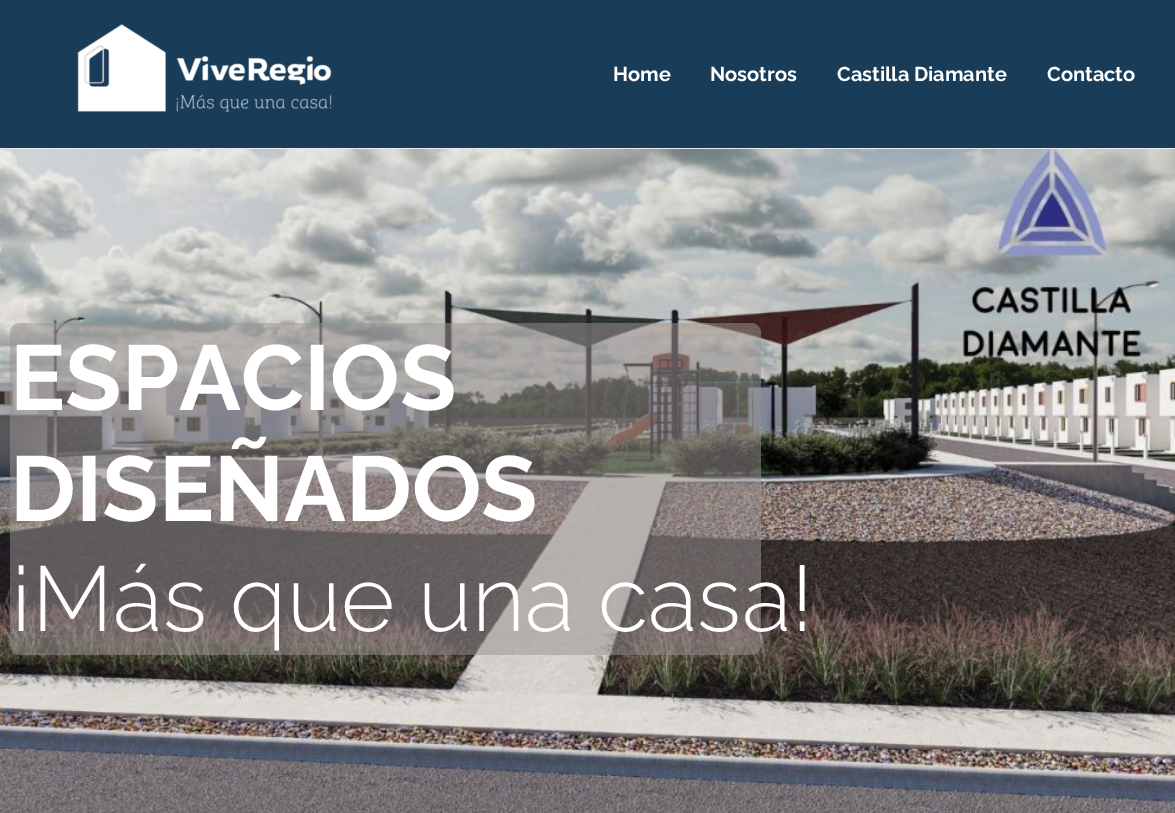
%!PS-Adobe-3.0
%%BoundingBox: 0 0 1175 813
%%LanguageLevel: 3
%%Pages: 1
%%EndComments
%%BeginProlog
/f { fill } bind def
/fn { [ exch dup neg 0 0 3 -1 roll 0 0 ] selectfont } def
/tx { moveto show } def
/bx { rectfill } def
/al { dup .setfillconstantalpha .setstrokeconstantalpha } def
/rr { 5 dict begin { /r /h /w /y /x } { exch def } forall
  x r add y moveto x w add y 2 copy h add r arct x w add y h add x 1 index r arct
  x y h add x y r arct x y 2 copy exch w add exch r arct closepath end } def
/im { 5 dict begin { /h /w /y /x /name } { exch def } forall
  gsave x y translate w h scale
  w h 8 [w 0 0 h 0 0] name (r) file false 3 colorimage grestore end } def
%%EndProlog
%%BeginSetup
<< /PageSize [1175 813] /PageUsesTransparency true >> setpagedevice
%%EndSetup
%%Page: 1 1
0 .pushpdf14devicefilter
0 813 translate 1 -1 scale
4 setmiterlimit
1 setgray
0 0 1175 813 bx
0.098 0.235 0.349 setrgbcolor
0 0 1175 148 bx
0.918 setgray
0 148 1175 1 bx
(image0.raw) 77 24 255 88 im
/Raleway-Bold 20 fn
1 setgray
(Home) 613 81 tx
(Nosotros) 710 81 tx
(Castilla Diamante) 837 81 tx
(Contacto) 1047 81 tx
(image1.raw) 0 149 1175 664 im
0.52 al
0.6 0.573 0.573 setrgbcolor
10 323 751 332 10 rr f
/Raleway-Bold 92 fn
1 al
1 setgray
(ESPACIOS) 10 410 tx
(DISEÑADOS) 10 521 tx
/Raleway-Light 92 fn
(¡Más que una casa!) 10 631 tx
.poppdf14devicefilter showpage
%%EOF
